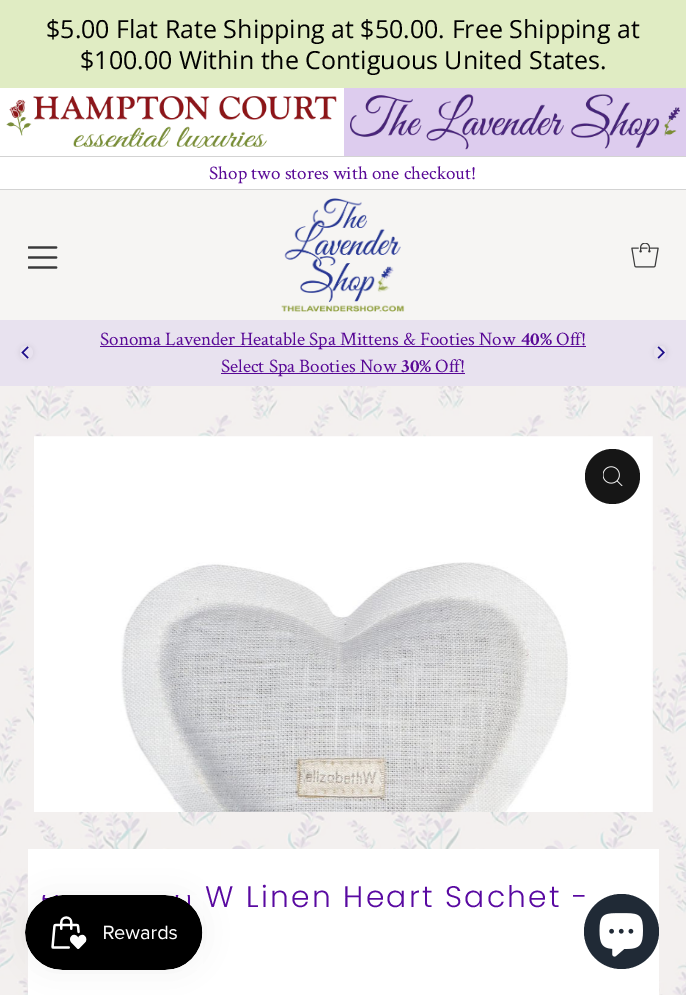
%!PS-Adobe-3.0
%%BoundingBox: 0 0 686 995
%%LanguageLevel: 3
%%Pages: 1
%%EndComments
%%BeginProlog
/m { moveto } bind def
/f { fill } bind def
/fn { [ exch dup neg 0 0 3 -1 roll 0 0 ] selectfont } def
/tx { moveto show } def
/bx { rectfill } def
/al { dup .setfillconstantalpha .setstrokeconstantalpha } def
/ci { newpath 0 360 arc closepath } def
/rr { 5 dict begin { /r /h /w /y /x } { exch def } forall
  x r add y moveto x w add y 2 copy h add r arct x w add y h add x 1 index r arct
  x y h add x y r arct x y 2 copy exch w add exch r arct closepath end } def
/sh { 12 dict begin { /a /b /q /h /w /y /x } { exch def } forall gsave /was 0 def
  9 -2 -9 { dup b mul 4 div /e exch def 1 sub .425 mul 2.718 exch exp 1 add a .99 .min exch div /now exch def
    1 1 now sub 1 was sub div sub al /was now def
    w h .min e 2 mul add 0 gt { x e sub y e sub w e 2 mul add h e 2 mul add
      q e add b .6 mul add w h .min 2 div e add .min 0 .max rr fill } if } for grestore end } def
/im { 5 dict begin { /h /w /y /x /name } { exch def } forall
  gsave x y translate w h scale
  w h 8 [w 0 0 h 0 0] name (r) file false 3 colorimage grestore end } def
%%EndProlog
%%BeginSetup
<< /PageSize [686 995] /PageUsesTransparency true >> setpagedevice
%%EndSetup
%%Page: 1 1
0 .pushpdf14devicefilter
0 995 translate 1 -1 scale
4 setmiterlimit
0.965 0.961 0.953 setrgbcolor
0 0 686 995 bx
(image0.raw) 0 386 686 609 im
0.878 0.925 0.765 setrgbcolor
0 0 686 88 bx
/OpenSans-Regular 25 fn
0 setgray
($5.00 Flat Rate Shipping at $50.00. Free Shipping at) 46 38 tx
($100.00 Within the Contiguous United States.) 80 69 tx
1 setgray
0 88 686 101 bx
0.827 setgray
0 156 686 1 bx
(image1.raw) 6 96 331 52 im
0.867 0.8 0.933 setrgbcolor
344 88 342 68 bx
(image2.raw) 350 94 330 56 im
0.827 setgray
0 189 686 1 bx
/CrimsonText-Regular 19.1 fn
0.349 0.035 0.588 setrgbcolor
(Shop two stores with one checkout!) 209 179 tx
(image3.raw) 28 246 30 23 im
(image4.raw) 281 198 124 114 im
(image5.raw) 631 243 28 25 im
0.91 0.886 0.937 setrgbcolor
0 320 686 66 bx
0 setgray
19 345 15 15 7.5 2.5 0.05 sh
0.91 0.886 0.937 setrgbcolor
26.5 352.5 6.5 ci f
(image6.raw) 21 346 8 13 im
0.349 0.035 0.588 setrgbcolor
100 346 486 1 bx
(Sonoma Lavender Heatable Spa Mittens & Footies Now) 100 345 tx
/CrimsonText-Bold 19.1 fn
(40%) 521 345 tx
/CrimsonText-Regular 19.1 fn
(Off!) 556 345 tx
221 373 244 1 bx
(Select Spa Booties Now) 221 372 tx
/CrimsonText-Bold 19.1 fn
(30%) 401 372 tx
/CrimsonText-Regular 19.1 fn
(Off!) 435 372 tx
0 setgray
653 345 15 15 7.5 2.5 0.05 sh
0.91 0.886 0.937 setrgbcolor
654 346 12 13 6 rr f
(image7.raw) 657 346 8 13 im
(image8.raw) 34 436 619 376 im
0.086 setgray
612.5 476.5 27.5 ci f
(image9.raw) 603 466 20 20 im
1 setgray
28 849 631 146 bx
/Poppins-Light 29.75 fn
0.349 0.035 0.631 setrgbcolor
205 907 m 2.25 0 (W Linen Heart Sachet -) ashow
0 setgray
25 895 178 75 37.5 15.5 0.05 sh
(image10.raw) 25 895 178 75 im
0.125 0.165 0.212 setrgbcolor
621.5 931.5 37.5 ci f
(image11.raw) 599 913 44 44 im
.poppdf14devicefilter showpage
%%EOF
